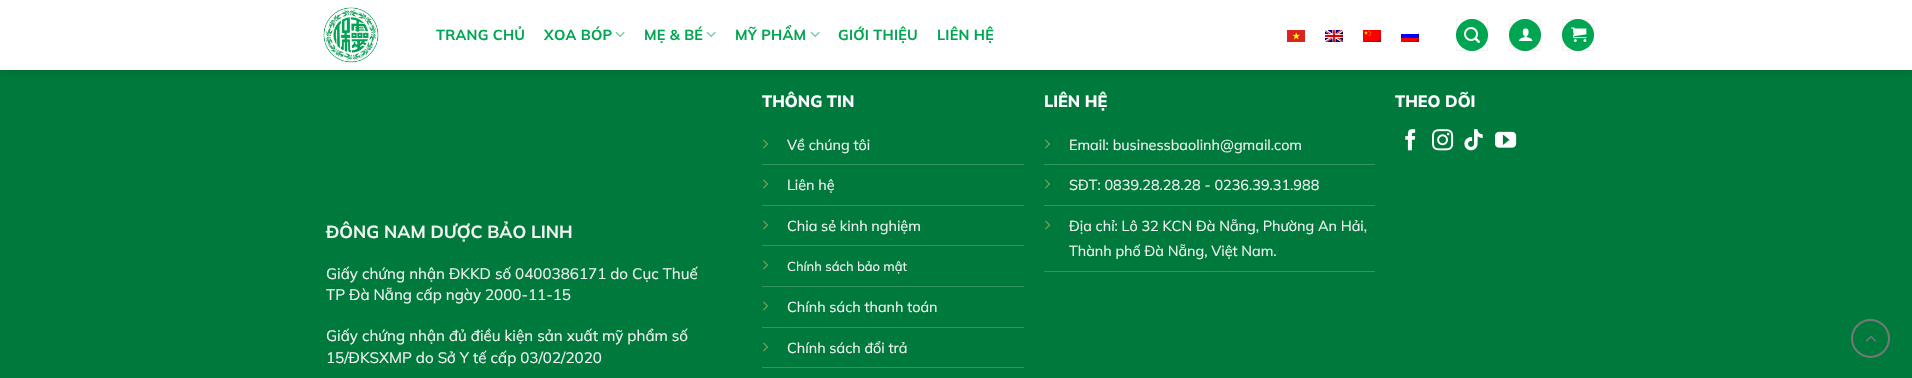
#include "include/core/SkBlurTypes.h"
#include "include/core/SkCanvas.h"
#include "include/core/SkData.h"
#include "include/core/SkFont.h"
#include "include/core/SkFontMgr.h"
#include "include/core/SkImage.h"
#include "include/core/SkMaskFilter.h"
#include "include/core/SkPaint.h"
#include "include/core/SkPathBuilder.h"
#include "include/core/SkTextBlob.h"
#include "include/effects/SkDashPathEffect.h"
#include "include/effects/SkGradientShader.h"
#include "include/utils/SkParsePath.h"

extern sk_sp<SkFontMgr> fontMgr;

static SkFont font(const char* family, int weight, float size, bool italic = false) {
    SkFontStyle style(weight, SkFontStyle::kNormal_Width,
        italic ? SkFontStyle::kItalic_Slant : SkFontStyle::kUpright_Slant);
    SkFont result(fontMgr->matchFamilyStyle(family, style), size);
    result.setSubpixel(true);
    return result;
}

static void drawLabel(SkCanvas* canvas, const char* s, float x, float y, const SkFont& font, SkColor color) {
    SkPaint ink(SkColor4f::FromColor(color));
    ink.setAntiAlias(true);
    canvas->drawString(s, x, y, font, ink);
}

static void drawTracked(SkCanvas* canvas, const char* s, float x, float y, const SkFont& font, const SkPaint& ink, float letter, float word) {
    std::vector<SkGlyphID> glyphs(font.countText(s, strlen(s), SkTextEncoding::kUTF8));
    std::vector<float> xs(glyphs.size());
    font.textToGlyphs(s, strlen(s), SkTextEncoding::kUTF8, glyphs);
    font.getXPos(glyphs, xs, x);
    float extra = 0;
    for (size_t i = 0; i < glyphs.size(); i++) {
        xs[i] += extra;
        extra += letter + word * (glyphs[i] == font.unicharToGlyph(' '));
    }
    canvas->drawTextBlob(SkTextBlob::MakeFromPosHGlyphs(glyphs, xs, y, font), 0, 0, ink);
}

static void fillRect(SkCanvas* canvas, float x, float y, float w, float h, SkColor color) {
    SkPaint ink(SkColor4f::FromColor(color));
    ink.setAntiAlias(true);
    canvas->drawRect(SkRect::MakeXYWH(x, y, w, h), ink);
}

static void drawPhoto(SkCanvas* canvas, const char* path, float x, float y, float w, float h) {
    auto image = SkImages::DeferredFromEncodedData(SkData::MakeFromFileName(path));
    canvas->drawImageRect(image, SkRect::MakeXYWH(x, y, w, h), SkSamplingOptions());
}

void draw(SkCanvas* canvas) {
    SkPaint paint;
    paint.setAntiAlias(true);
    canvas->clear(0xFF007A3C);
    paint.setColor(0x26000000);
    paint.setMaskFilter(SkMaskFilter::MakeBlur(kNormal_SkBlurStyle, 5));
    canvas->drawRect(SkRect::MakeXYWH(1, 1, 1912, 70), paint);
    paint.setMaskFilter(nullptr);
    fillRect(canvas, 0, 0, 1912, 70, 0xFFFFFFFF);
    drawPhoto(canvas, "assets/img1.png", 323, 7, 56, 56);
    SkFont font1 = font("Mulish", 700, 14.4f);
    paint.setColor(0xFF00A551);
    drawTracked(canvas, "TRANG CHỦ", 436, 40, font1, paint, 0.25f, 0);
    drawTracked(canvas, "XOA BÓP", 544, 40, font1, paint, 0.25f, 0);
    drawPhoto(canvas, "assets/img2.png", 615, 31, 10, 6);
    drawTracked(canvas, "MẸ & BÉ", 644, 40, font1, paint, 0.25f, 0);
    drawPhoto(canvas, "assets/img2.png", 706, 31, 10, 6);
    drawTracked(canvas, "MỸ PHẨM", 735, 40, font1, paint, 0.25f, 0);
    drawPhoto(canvas, "assets/img2.png", 810, 31, 10, 6);
    drawTracked(canvas, "GIỚI THIỆU", 838, 40, font1, paint, 0.25f, 0);
    drawTracked(canvas, "LIÊN HỆ", 937, 40, font1, paint, 0.25f, 0);
    drawPhoto(canvas, "assets/img3.png", 1287, 30, 18, 12);
    drawPhoto(canvas, "assets/img4.png", 1325, 30, 18, 12);
    drawPhoto(canvas, "assets/img5.png", 1363, 30, 18, 12);
    drawPhoto(canvas, "assets/img6.png", 1401, 32, 18, 10);
    canvas->drawCircle(1472, 35, 16, paint);
    paint.setStroke(true);
    paint.setStrokeWidth(1);
    paint.setColor(0x0D000000);
    canvas->drawRect(SkRect::MakeXYWH(1456.5f, 19.5f, 31, 31), paint);
    drawPhoto(canvas, "assets/img7.png", 1464, 27, 16, 16);
    paint.setStroke(false);
    paint.setColor(0xFF00A551);
    canvas->drawCircle(1525, 35, 16, paint);
    paint.setStroke(true);
    paint.setColor(0x0D000000);
    canvas->drawRect(SkRect::MakeXYWH(1509.5f, 19.5f, 31, 31), paint);
    drawPhoto(canvas, "assets/img8.png", 1519, 28, 14, 13);
    paint.setStroke(false);
    paint.setColor(0xFF00A551);
    canvas->drawCircle(1578, 35, 16, paint);
    paint.setStroke(true);
    paint.setColor(0x0D000000);
    canvas->drawRect(SkRect::MakeXYWH(1562.5f, 19.5f, 31, 31), paint);
    drawPhoto(canvas, "assets/img9.png", 1571, 27, 16, 15);
    SkFont font2 = font("Mulish", 700, 17.5f);
    drawLabel(canvas, "ĐÔNG NAM DƯỢC BẢO LINH", 326, 238, font2, 0xFFF1F1F1);
    SkFont font3 = font("Mulish", 400, 15.2f);
    drawLabel(canvas, "Giấy chứng nhận ĐKKD số 0400386171 do Cục Thuế", 326, 279, font3, 0xFFF1F1F1);
    drawLabel(canvas, "TP Đà Nẵng cấp ngày 2000-11-15", 326, 300, font3, 0xFFF1F1F1);
    drawLabel(canvas, "Giấy chứng nhận đủ điều kiện sản xuất mỹ phẩm số", 326, 341, font3, 0xFFF1F1F1);
    drawLabel(canvas, "15/ĐKSXMP do Sở Y tế cấp 03/02/2020", 326, 363, font3, 0xFFF1F1F1);
    SkFont font4 = font("Mulish", 800, 16.25f);
    drawLabel(canvas, "THÔNG TIN", 762, 107, font4, 0xFFFFFFFF);
    fillRect(canvas, 762, 164, 262, 1, 0xFF339563);
    drawPhoto(canvas, "assets/img10.png", 763, 139, 6, 10);
    SkFont font5 = font("Mulish", 400, 14.4f);
    drawLabel(canvas, "Về chúng tôi", 787, 150, font5, 0xFFF1F1F1);
    fillRect(canvas, 762, 205, 262, 1, 0xFF339563);
    drawPhoto(canvas, "assets/img10.png", 763, 179, 6, 10);
    drawLabel(canvas, "Liên hệ", 787, 190, font5, 0xFFF1F1F1);
    fillRect(canvas, 762, 245, 262, 1, 0xFF339563);
    drawPhoto(canvas, "assets/img10.png", 763, 220, 6, 10);
    drawLabel(canvas, "Chia sẻ kinh nghiệm", 787, 231, font5, 0xFFF1F1F1);
    fillRect(canvas, 762, 286, 262, 1, 0xFF339563);
    drawPhoto(canvas, "assets/img10.png", 763, 260, 6, 10);
    SkFont font6 = font("Mulish", 400, 13);
    drawLabel(canvas, "Chính sách bảo mật", 787, 271, font6, 0xFFF1F1F1);
    fillRect(canvas, 762, 327, 262, 1, 0xFF339563);
    drawPhoto(canvas, "assets/img10.png", 763, 301, 6, 10);
    drawLabel(canvas, "Chính sách thanh toán", 787, 312, font5, 0xFFF1F1F1);
    fillRect(canvas, 762, 367, 262, 1, 0xFF339563);
    drawPhoto(canvas, "assets/img10.png", 763, 342, 6, 10);
    drawLabel(canvas, "Chính sách đổi trả", 787, 353, font5, 0xFFF1F1F1);
    drawLabel(canvas, "LIÊN HỆ", 1044, 107, font4, 0xFFFFFFFF);
    fillRect(canvas, 1044, 164, 331, 1, 0xFF339563);
    drawPhoto(canvas, "assets/img10.png", 1045, 139, 6, 10);
    drawLabel(canvas, "Email: businessbaolinh@gmail.com", 1069, 150, font5, 0xFFF1F1F1);
    fillRect(canvas, 1044, 205, 331, 1, 0xFF339563);
    drawPhoto(canvas, "assets/img10.png", 1045, 179, 6, 10);
    drawLabel(canvas, "SĐT: 0839.28.28.28 - 0236.39.31.988", 1069, 190, font5, 0xFFF1F1F1);
    fillRect(canvas, 1044, 271, 331, 1, 0xFF339563);
    drawPhoto(canvas, "assets/img10.png", 1045, 220, 6, 10);
    drawLabel(canvas, "Địa chỉ: Lô 32 KCN Đà Nẵng, Phường An Hải,", 1069, 231, font5, 0xFFF1F1F1);
    drawLabel(canvas, "Thành phố Đà Nẵng, Việt Nam.", 1069, 256, font5, 0xFFF1F1F1);
    drawLabel(canvas, "THEO DÕI", 1395, 107, font4, 0xFFFFFFFF);
    drawPhoto(canvas, "assets/img11.png", 1405, 129, 11, 22);
    drawPhoto(canvas, "assets/img12.png", 1432, 129, 22, 22);
    drawPhoto(canvas, "assets/img13.png", 1464, 129, 19, 22);
    drawPhoto(canvas, "assets/img14.png", 1495, 131, 22, 17);
    paint.setStrokeWidth(2);
    paint.setColor(0xFF777777);
    canvas->drawCircle(1870.5f, 338.5f, 18.5f, paint);
    drawPhoto(canvas, "assets/img15.png", 1865, 335, 12, 7);
}
